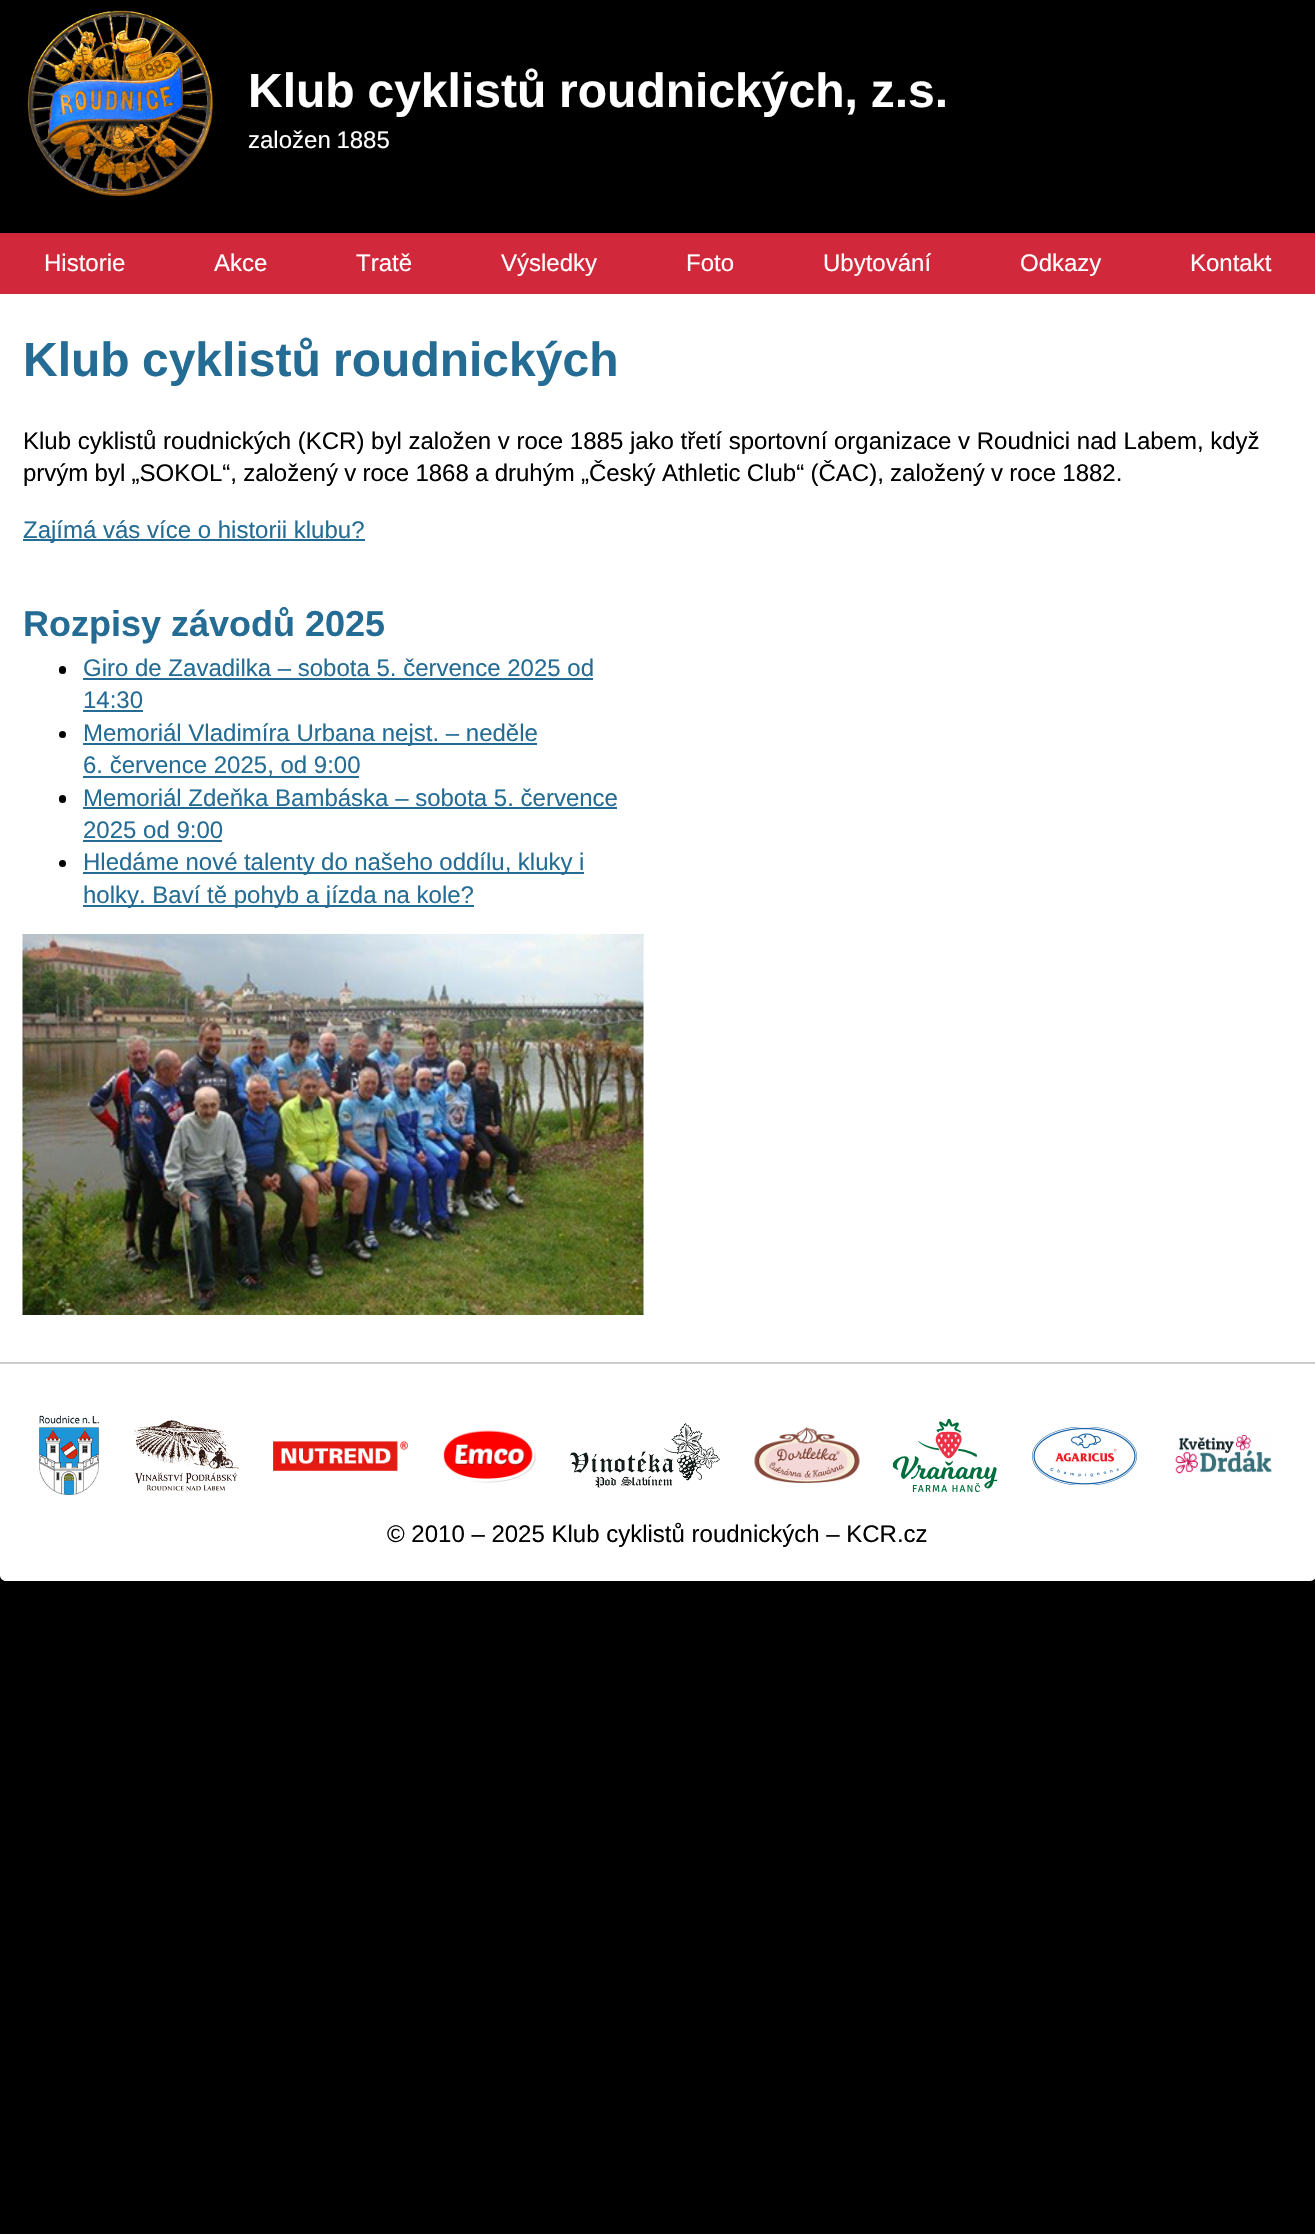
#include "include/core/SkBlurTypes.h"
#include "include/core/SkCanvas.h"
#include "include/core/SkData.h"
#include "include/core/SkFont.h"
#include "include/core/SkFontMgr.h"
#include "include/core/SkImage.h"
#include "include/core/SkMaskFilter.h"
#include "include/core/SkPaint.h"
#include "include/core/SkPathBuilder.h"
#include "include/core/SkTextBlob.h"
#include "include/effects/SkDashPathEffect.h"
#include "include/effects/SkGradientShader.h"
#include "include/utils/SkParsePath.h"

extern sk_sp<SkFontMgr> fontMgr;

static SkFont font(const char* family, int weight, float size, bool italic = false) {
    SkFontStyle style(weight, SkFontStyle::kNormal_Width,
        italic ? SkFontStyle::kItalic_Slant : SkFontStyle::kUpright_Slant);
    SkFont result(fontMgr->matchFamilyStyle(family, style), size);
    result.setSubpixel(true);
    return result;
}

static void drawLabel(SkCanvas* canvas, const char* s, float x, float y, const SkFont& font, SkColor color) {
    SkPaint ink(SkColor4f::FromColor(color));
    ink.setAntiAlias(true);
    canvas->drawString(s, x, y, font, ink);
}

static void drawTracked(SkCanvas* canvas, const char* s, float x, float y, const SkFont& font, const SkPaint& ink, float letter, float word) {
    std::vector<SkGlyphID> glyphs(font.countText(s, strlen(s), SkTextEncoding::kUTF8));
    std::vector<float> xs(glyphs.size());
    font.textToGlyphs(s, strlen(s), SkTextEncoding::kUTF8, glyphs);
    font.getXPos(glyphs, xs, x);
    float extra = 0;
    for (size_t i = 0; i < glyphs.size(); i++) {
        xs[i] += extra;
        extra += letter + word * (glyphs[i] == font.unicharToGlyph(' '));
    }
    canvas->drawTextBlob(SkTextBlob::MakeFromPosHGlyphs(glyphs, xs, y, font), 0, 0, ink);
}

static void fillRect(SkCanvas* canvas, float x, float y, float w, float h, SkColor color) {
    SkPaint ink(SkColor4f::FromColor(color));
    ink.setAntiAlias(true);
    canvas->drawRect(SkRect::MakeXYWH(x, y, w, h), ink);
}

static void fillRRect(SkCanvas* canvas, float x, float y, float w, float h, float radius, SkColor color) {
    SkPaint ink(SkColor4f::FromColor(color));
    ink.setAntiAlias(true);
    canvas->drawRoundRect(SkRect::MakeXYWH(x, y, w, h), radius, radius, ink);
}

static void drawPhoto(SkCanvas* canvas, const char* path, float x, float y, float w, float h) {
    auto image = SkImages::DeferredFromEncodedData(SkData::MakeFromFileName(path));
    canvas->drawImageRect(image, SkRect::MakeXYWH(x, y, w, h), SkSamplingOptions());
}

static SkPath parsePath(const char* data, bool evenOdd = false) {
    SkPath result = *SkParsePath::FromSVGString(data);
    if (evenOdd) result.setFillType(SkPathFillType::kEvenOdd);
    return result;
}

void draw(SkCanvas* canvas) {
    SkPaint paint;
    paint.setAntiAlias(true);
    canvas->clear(0xFF000000);
    drawPhoto(canvas, "assets/img1.png", 27, 10, 186, 187);
    SkFont font1 = font("Liberation Sans", 700, 48);
    paint.setColor(0xFFFFFFFF);
    drawTracked(canvas, "Klub cyklistů roudnických, z.s.", 248, 107, font1, paint, 0, -0.5f);
    SkFont font2 = font("Liberation Sans", 400, 24);
    drawTracked(canvas, "založen 1885", 248, 148, font2, paint, 0, -1);
    fillRect(canvas, 0, 233, 1315, 61, 0xFFD1293B);
    drawLabel(canvas, "Historie", 44, 271, font2, 0xFFFFFFFF);
    drawLabel(canvas, "Akce", 214, 271, font2, 0xFFFFFFFF);
    drawLabel(canvas, "Tratě", 356, 271, font2, 0xFFFFFFFF);
    drawLabel(canvas, "Výsledky", 501, 271, font2, 0xFFFFFFFF);
    drawLabel(canvas, "Foto", 686, 271, font2, 0xFFFFFFFF);
    drawLabel(canvas, "Ubytování", 823, 271, font2, 0xFFFFFFFF);
    drawLabel(canvas, "Odkazy", 1020, 271, font2, 0xFFFFFFFF);
    drawLabel(canvas, "Kontakt", 1190, 271, font2, 0xFFFFFFFF);
    fillRect(canvas, 0, 294, 1315, 1068, 0xFFFFFFFF);
    paint.setColor(0xFF256C95);
    drawTracked(canvas, "Klub cyklistů roudnických", 23, 376, font1, paint, 0, -1);
    drawLabel(canvas, "Klub cyklistů roudnických (KCR) byl založen v roce 1885 jako třetí sportovní organizace v Roudnici nad Labem, když", 23, 449, font2, 0xFF000000);
    paint.setColor(0xFF000000);
    drawTracked(canvas, "prvým byl „SOKOL“, založený v roce 1868 a druhým „Český Athletic Club“ (ČAC), založený v roce 1882.", 23, 481, font2, paint, 0, -0.4f);
    fillRect(canvas, 23, 539, 342, 2, 0xFF256C95);
    drawLabel(canvas, "Zajímá vás více o historii klubu?", 23, 538, font2, 0xFF256C95);
    SkFont font3 = font("Liberation Sans", 700, 36);
    drawLabel(canvas, "Rozpisy závodů 2025", 23, 636, font3, 0xFF256C95);
    fillRRect(canvas, 59, 666, 7, 8, 3.5f, 0xFF000000);
    drawLabel(canvas, "Giro de Zavadilka – sobota 5. července 2025 od", 83, 676, font2, 0xFF256C95);
    fillRect(canvas, 83, 678, 510, 2, 0xFF256C95);
    drawLabel(canvas, "14:30", 83, 708, font2, 0xFF256C95);
    fillRect(canvas, 83, 710, 60, 2, 0xFF256C95);
    canvas->drawCircle(62.5f, 734.5f, 3.5f, paint);
    fillRect(canvas, 83, 743, 454, 2, 0xFF256C95);
    drawLabel(canvas, "Memoriál Vladimíra Urbana nejst. – neděle", 83, 741, font2, 0xFF256C95);
    fillRect(canvas, 83, 776, 276, 2, 0xFF256C95);
    drawLabel(canvas, "6. července 2025, od 9:00", 83, 773, font2, 0xFF256C95);
    fillRRect(canvas, 59, 795, 7, 8, 3.5f, 0xFF000000);
    drawLabel(canvas, "Memoriál Zdeňka Bambáska – sobota 5. července", 83, 806, font2, 0xFF256C95);
    fillRect(canvas, 83, 807, 534, 2, 0xFF256C95);
    drawLabel(canvas, "2025 od 9:00", 83, 838, font2, 0xFF256C95);
    fillRect(canvas, 83, 840, 139, 2, 0xFF256C95);
    canvas->drawCircle(62.5f, 863.5f, 3.5f, paint);
    fillRect(canvas, 83, 872, 501, 2, 0xFF256C95);
    paint.setColor(0xFF256C95);
    drawTracked(canvas, "Hledáme nové talenty do našeho oddílu, kluky i", 83, 870, font2, paint, 0, -0.25f);
    fillRect(canvas, 83, 905, 391, 2, 0xFF256C95);
    drawLabel(canvas, "holky. Baví tě pohyb a jízda na kole?", 83, 903, font2, 0xFF256C95);
    drawPhoto(canvas, "assets/img2.png", 22, 934, 622, 381);
    paint.setColor(0xFFFFFFFF);
    canvas->drawPath(parsePath("M0 1362H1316V1575C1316 1578.5 1313.5 1581 1310 1581H6C2.5 1581 0 1578.5 0 1575Z"), paint);
    fillRect(canvas, 0, 1362, 1315, 2, 0xFFCCCCCC);
    drawPhoto(canvas, "assets/img3.png", 39, 1415, 60, 80);
    drawPhoto(canvas, "assets/img4.png", 133, 1420, 106, 71);
    drawPhoto(canvas, "assets/img5.png", 273, 1441, 135, 30);
    drawPhoto(canvas, "assets/img6.png", 443, 1430, 93, 53);
    drawPhoto(canvas, "assets/img7.png", 570, 1423, 150, 65);
    drawPhoto(canvas, "assets/img8.png", 754, 1427, 106, 56);
    drawPhoto(canvas, "assets/img9.png", 893, 1419, 105, 73);
    drawPhoto(canvas, "assets/img10.png", 1032, 1427, 105, 58);
    drawPhoto(canvas, "assets/img11.png", 1175, 1434, 97, 40);
    drawLabel(canvas, "© 2010 – 2025 Klub cyklistů roudnických – KCR.cz", 387, 1542, font2, 0xFF000000);
}
